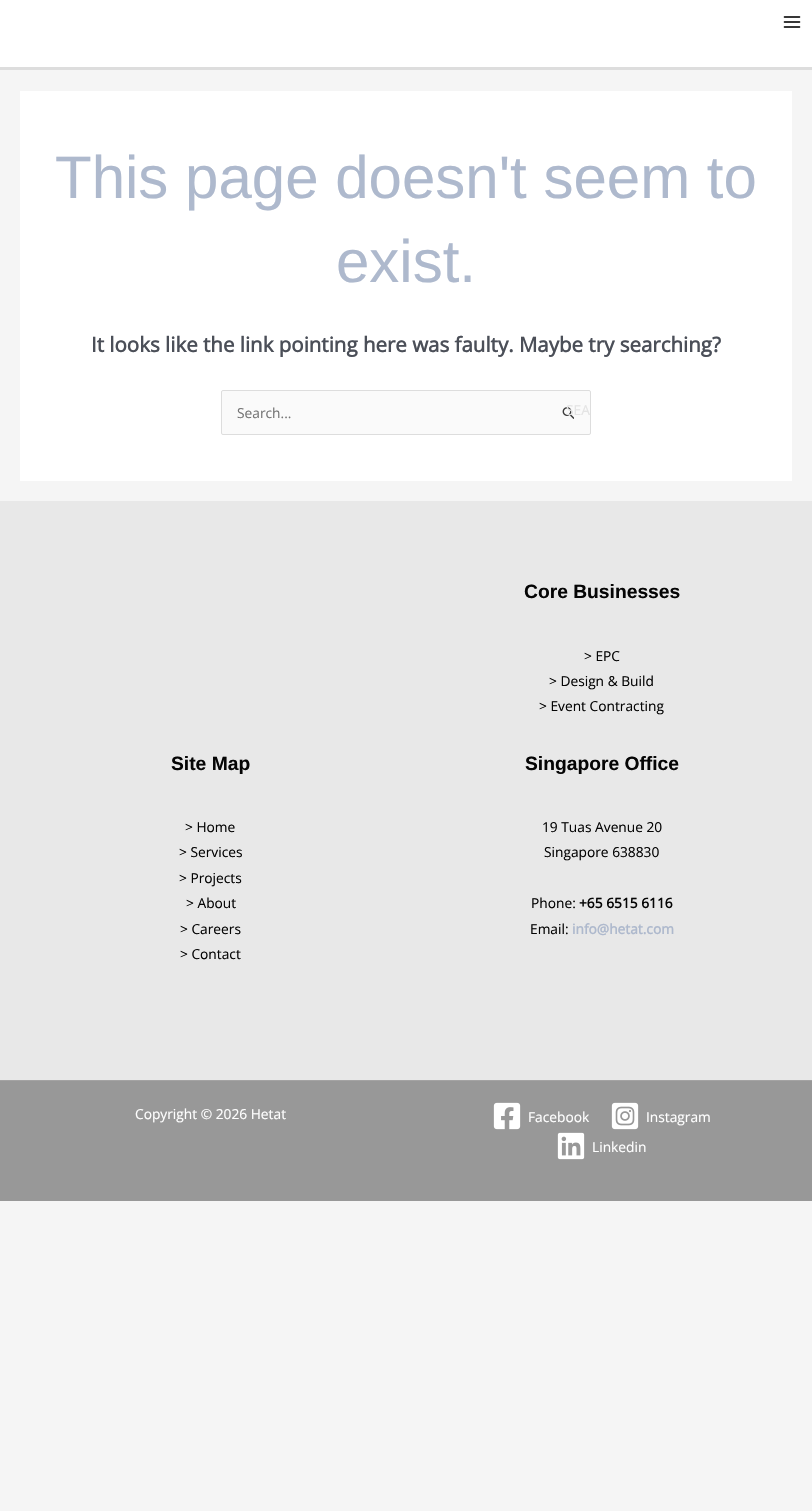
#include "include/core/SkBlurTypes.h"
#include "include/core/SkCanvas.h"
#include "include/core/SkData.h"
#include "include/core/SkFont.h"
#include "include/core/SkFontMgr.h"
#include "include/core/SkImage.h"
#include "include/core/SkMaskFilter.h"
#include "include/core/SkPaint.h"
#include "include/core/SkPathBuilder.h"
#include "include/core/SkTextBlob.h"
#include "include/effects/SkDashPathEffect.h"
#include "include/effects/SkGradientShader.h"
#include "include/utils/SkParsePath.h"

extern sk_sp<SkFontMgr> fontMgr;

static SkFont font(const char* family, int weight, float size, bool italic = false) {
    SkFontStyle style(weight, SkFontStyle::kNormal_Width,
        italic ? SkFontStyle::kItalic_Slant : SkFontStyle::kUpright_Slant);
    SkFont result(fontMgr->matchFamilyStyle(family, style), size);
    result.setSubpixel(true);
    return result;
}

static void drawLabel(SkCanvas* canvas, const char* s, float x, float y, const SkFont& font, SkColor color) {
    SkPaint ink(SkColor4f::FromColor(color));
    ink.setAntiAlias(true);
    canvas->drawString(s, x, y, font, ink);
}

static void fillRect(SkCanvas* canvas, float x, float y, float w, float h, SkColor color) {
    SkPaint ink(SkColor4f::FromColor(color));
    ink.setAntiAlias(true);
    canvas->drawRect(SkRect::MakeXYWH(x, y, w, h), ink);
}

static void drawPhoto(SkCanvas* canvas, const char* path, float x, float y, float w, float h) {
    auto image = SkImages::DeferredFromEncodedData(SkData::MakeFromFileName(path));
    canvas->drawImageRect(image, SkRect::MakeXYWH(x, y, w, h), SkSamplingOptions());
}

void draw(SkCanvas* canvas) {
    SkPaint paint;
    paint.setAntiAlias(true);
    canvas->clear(0xFFF5F5F5);
    fillRect(canvas, 0, 0, 812, 67, 0xFFFFFFFF);
    fillRect(canvas, 0, 67, 812, 3, 0xFFDDDDDD);
    drawPhoto(canvas, "assets/img1.png", 783, 16, 18, 12);
    fillRect(canvas, 20, 91, 772, 390, 0xFFFFFFFF);
    SkFont font1 = font("Liberation Sans", 400, 60);
    drawLabel(canvas, "This page doesn't seem to", 55, 198, font1, 0xFFAEB9CD);
    drawLabel(canvas, "exist.", 336, 282, font1, 0xFFAEB9CD);
    SkFont font2 = font("Open Sans", 700, 20.5f);
    drawLabel(canvas, "It looks like the link pointing here was faulty. Maybe try searching?", 91, 352, font2, 0xFF4B4F58);
    paint.setColor(0xFFFAFAFA);
    canvas->drawRoundRect(SkRect::MakeXYWH(221.5f, 390.5f, 369, 44), 1.5f, 1.5f, paint);
    paint.setStroke(true);
    paint.setStrokeWidth(1);
    paint.setColor(0xFFDDDDDD);
    canvas->drawRoundRect(SkRect::MakeXYWH(221.5f, 390.5f, 369, 44), 1.5f, 1.5f, paint);
    SkFont font3 = font("Open Sans", 400, 13.75f);
    drawLabel(canvas, "Search...", 237, 418, font3, 0xFF757575);
    drawPhoto(canvas, "assets/img2.png", 562, 407, 12, 12);
    drawLabel(canvas, "SEA", 566, 415, font3, 0xFFE4E4E4);
    fillRect(canvas, 0, 501, 812, 579, 0xFFE8E8E8);
    SkFont font4 = font("Liberation Sans", 700, 19.25f);
    drawLabel(canvas, "Core Businesses", 524, 598, font4, 0xFF050505);
    drawLabel(canvas, "> EPC", 584, 661, font3, 0xFF050505);
    drawLabel(canvas, "> Design & Build", 549, 686, font3, 0xFF050505);
    drawLabel(canvas, "> Event Contracting", 539, 711, font3, 0xFF050505);
    drawLabel(canvas, "Site Map", 171, 770, font4, 0xFF050505);
    drawLabel(canvas, "> Home", 185, 832, font3, 0xFF050505);
    drawLabel(canvas, "> Services", 179, 857, font3, 0xFF050505);
    drawLabel(canvas, "> Projects", 179, 883, font3, 0xFF050505);
    drawLabel(canvas, "> About", 186, 908, font3, 0xFF050505);
    drawLabel(canvas, "> Careers", 180, 934, font3, 0xFF050505);
    drawLabel(canvas, "> Contact", 180, 959, font3, 0xFF050505);
    drawLabel(canvas, "Singapore Office", 525, 770, font4, 0xFF050505);
    drawLabel(canvas, "19 Tuas Avenue 20", 542, 832, font3, 0xFF050505);
    drawLabel(canvas, "Singapore 638830", 544, 857, font3, 0xFF050505);
    drawLabel(canvas, "Phone:", 531, 908, font3, 0xFF050505);
    SkFont font5 = font("Open Sans", 700, 13.75f);
    drawLabel(canvas, "+65 6515 6116", 579, 908, font5, 0xFF050505);
    drawLabel(canvas, "Email:", 530, 934, font3, 0xFF050505);
    drawLabel(canvas, "info@hetat.com", 572, 934, font5, 0xFFAEB9CD);
    fillRect(canvas, 0, 1081, 812, 120, 0xFF989898);
    fillRect(canvas, 0, 1080, 812, 1, 0xFFA4A3A3);
    drawLabel(canvas, "Copyright © 2026 Hetat", 135, 1119, font3, 0xFFFFFFFF);
    drawPhoto(canvas, "assets/img3.png", 493, 1102, 28, 28);
    drawLabel(canvas, "Facebook", 528, 1122, font3, 0xFFFFFFFF);
    drawPhoto(canvas, "assets/img4.png", 611, 1102, 28, 28);
    drawLabel(canvas, "Instagram", 646, 1122, font3, 0xFFFFFFFF);
    drawPhoto(canvas, "assets/img5.png", 557, 1132, 28, 28);
    drawLabel(canvas, "Linkedin", 592, 1152, font3, 0xFFFFFFFF);
}
